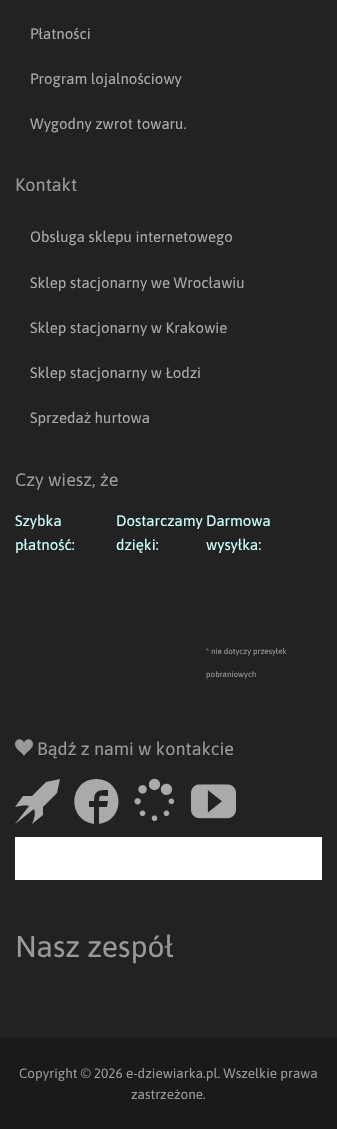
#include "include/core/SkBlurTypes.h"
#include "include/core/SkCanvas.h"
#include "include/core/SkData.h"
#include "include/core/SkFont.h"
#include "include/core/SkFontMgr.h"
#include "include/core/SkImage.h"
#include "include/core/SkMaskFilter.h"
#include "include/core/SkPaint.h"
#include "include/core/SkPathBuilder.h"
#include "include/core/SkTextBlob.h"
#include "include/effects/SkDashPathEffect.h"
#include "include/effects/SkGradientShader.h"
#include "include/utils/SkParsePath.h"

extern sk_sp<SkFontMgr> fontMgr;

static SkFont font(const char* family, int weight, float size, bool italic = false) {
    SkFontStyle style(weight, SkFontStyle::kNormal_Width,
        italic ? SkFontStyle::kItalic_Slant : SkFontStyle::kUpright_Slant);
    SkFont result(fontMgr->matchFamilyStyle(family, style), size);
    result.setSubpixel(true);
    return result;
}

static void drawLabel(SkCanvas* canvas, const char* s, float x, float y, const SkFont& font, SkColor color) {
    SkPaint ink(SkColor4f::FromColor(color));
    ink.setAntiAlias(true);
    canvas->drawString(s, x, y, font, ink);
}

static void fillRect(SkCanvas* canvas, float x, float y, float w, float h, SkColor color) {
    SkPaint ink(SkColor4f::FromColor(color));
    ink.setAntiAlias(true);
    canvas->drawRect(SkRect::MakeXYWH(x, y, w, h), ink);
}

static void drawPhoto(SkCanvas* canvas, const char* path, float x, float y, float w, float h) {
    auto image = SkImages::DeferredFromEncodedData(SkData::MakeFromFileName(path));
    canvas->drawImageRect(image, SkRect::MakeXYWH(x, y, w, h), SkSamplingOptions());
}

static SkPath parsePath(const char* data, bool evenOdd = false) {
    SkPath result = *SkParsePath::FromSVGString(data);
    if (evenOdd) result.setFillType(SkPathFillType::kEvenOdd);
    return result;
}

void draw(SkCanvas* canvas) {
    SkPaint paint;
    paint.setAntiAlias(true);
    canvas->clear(0xFF222222);
    SkFont font1 = font("Asap", 400, 15);
    drawLabel(canvas, "Płatności", 30, 39, font1, 0xFFAAAAAA);
    drawLabel(canvas, "Program lojalnościowy", 30, 84, font1, 0xFFAAAAAA);
    drawLabel(canvas, "Wygodny zwrot towaru.", 30, 129, font1, 0xFFAAAAAA);
    SkFont font2 = font("Asap", 400, 18);
    drawLabel(canvas, "Kontakt", 15, 191, font2, 0xFF999999);
    drawLabel(canvas, "Obsługa sklepu internetowego", 30, 242, font1, 0xFFAAAAAA);
    drawLabel(canvas, "Sklep stacjonarny we Wrocławiu", 30, 288, font1, 0xFFAAAAAA);
    drawLabel(canvas, "Sklep stacjonarny w Krakowie", 30, 333, font1, 0xFFAAAAAA);
    drawLabel(canvas, "Sklep stacjonarny w Łodzi", 30, 378, font1, 0xFFAAAAAA);
    drawLabel(canvas, "Sprzedaż hurtowa", 30, 423, font1, 0xFFAAAAAA);
    drawLabel(canvas, "Czy wiesz, że", 15, 486, font2, 0xFF999999);
    drawLabel(canvas, "Szybka", 15, 526, font1, 0xFFCCFFFF);
    drawLabel(canvas, "płatność:", 15, 550, font1, 0xFFCCFFFF);
    drawLabel(canvas, "Dostarczamy", 116, 526, font1, 0xFFCCFFFF);
    drawLabel(canvas, "dzięki:", 116, 550, font1, 0xFFCCFFFF);
    drawLabel(canvas, "Darmowa", 206, 526, font1, 0xFFCCFFFF);
    drawLabel(canvas, "wysyłka:", 206, 550, font1, 0xFFCCFFFF);
    SkFont font3 = font("Asap", 400, 8);
    drawLabel(canvas, "* nie dotyczy przesyłek", 206, 654, font3, 0xFF999999);
    drawLabel(canvas, "pobraniowych", 206, 677, font3, 0xFF999999);
    drawPhoto(canvas, "assets/img1.png", 15, 739, 18, 17);
    drawLabel(canvas, "Bądź z nami w kontakcie", 37, 755, font2, 0xFF999999);
    paint.setColor(0xFFAAAAAA);
    canvas->drawPath(parsePath("M46 782L32 796H23L15 807C19 806 25 805 29 806L15 824L34 809C36 814 34 819 32 824L43 815V807L57 793L60 779Z"), paint);
    canvas->drawPath(parsePath("M96 779C124 779 127 820 99 824V807H107L108 801H99C99 794 101 796 108 796V790C98 790 94 791 94 801H89V807H94V824C66 820 69 779 96 779Z"), paint);
    drawPhoto(canvas, "assets/img2.png", 134, 778, 41, 43);
    drawPhoto(canvas, "assets/img3.png", 191, 784, 45, 35);
    fillRect(canvas, 15, 837, 307, 43, 0xFFFFFFFF);
    SkFont font4 = font("Asap", 400, 30);
    drawLabel(canvas, "Nasz zespół", 15, 957, font4, 0xFF999999);
    fillRect(canvas, 0, 1038, 337, 91, 0xFF1A1A1A);
    SkFont font5 = font("Asap", 400, 13.5f);
    drawLabel(canvas, "Copyright © 2026 e-dziewiarka.pl. Wszelkie prawa", 19, 1078, font5, 0xFF999999);
    drawLabel(canvas, "zastrzeżone.", 131, 1099, font5, 0xFF999999);
}
